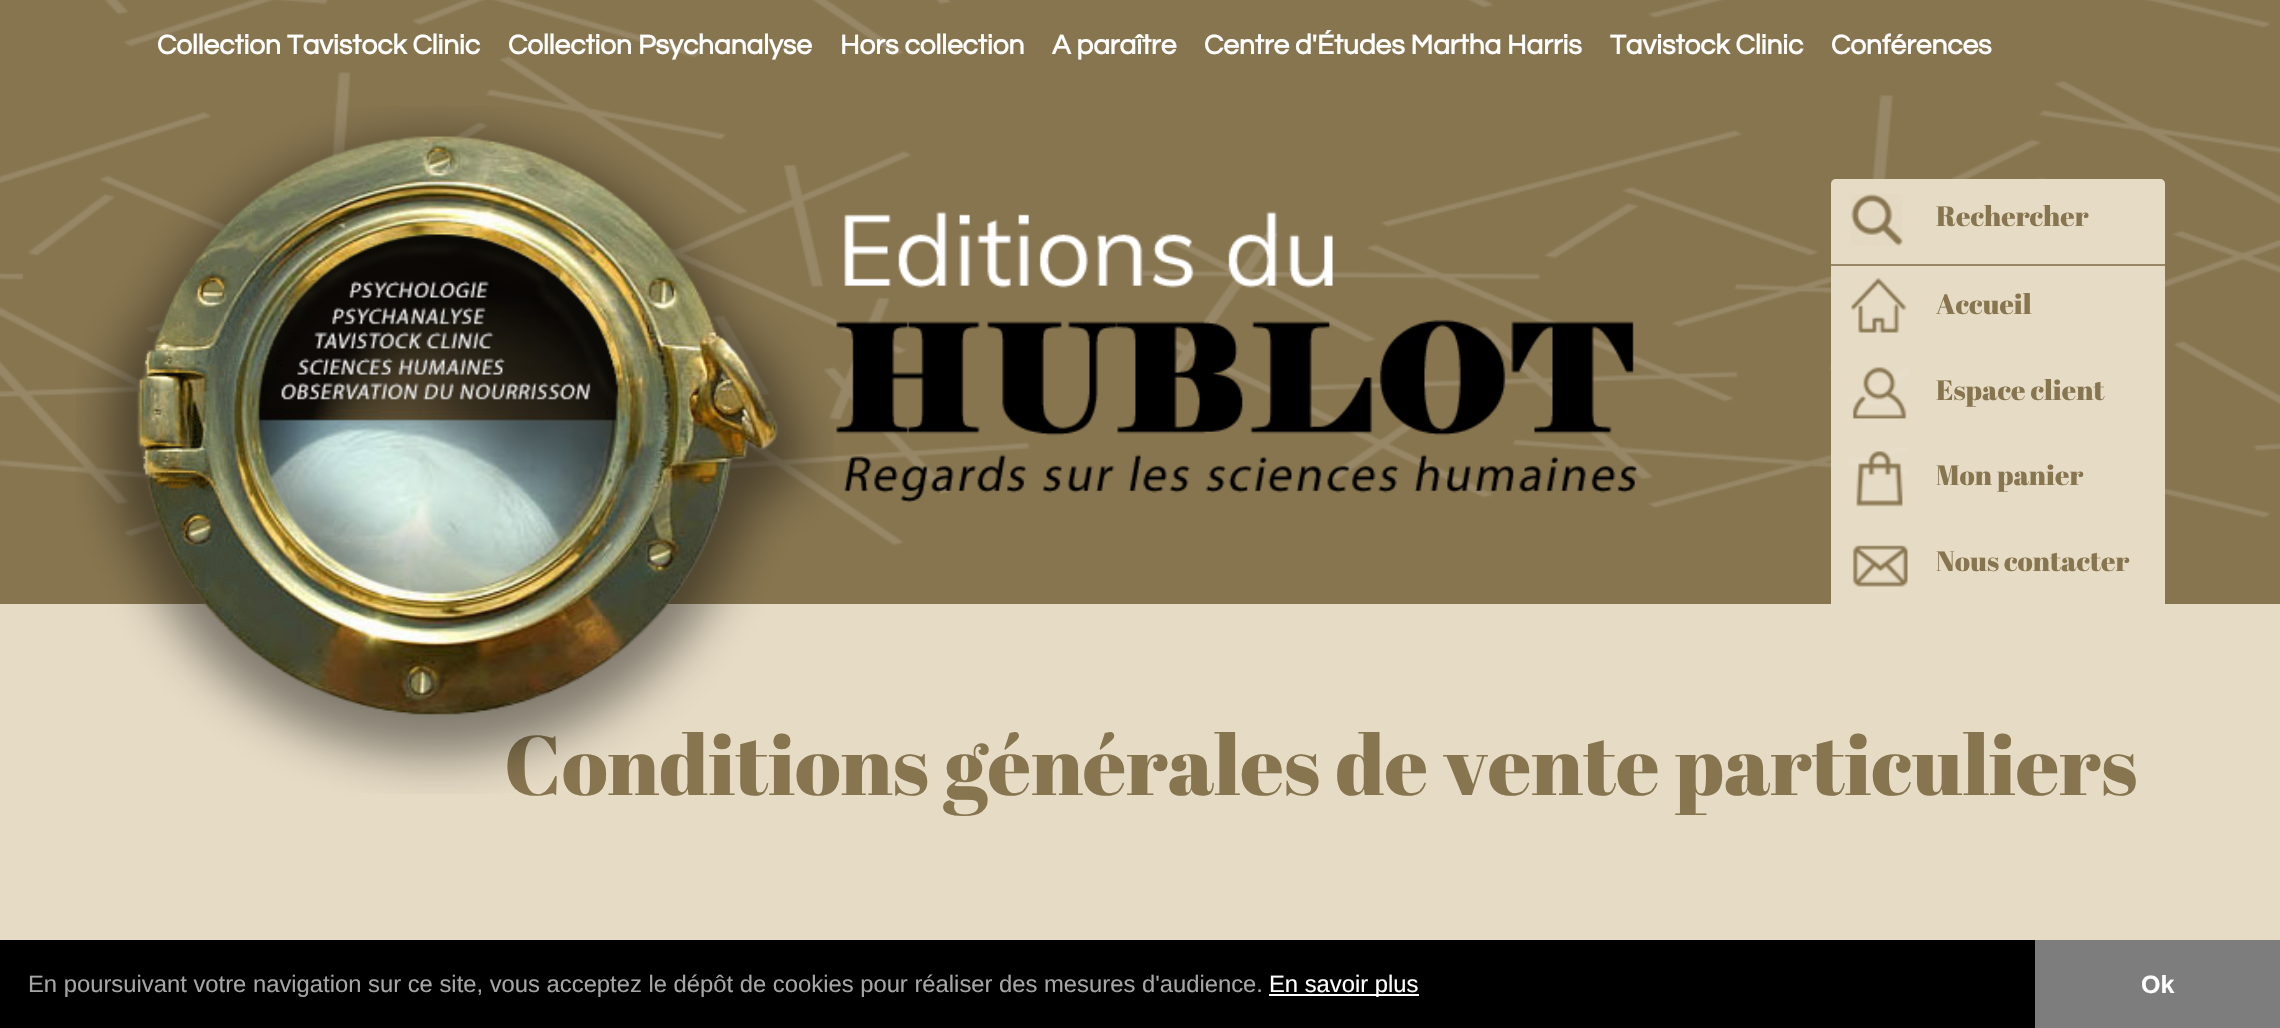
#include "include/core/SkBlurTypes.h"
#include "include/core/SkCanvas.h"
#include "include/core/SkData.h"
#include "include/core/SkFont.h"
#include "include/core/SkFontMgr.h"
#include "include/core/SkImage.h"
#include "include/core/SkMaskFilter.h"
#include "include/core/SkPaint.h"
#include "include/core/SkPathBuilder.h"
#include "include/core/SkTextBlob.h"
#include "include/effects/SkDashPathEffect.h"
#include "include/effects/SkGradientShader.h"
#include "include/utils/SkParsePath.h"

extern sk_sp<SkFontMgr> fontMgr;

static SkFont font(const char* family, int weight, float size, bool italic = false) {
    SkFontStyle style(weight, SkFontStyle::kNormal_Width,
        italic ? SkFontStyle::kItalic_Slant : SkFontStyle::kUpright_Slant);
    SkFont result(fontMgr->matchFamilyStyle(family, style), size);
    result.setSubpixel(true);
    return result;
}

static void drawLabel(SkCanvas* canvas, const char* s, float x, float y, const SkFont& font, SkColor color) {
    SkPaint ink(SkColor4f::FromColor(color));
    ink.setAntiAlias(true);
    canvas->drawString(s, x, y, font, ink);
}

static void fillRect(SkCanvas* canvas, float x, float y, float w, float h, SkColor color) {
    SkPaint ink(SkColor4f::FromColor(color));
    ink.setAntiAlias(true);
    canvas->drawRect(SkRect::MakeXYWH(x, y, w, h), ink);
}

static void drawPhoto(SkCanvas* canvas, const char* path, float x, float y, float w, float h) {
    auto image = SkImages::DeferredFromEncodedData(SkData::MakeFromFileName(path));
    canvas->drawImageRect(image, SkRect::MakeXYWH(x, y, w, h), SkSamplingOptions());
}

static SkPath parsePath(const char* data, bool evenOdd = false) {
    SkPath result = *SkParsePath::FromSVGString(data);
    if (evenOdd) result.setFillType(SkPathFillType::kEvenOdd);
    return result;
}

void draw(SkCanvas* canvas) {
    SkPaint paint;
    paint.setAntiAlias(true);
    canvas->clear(0xFFE6DBC5);
    fillRect(canvas, 0, 0, 2280, 604, 0xFF87754F);
    drawPhoto(canvas, "assets/img1.png", 0, 0, 2280, 604);
    SkFont font1 = font("Questrial", 700, 28);
    drawLabel(canvas, "Collection Tavistock Clinic", 157, 54, font1, 0xFFFFFFFF);
    drawLabel(canvas, "Collection Psychanalyse", 508, 54, font1, 0xFFFFFFFF);
    drawLabel(canvas, "Hors collection", 840, 54, font1, 0xFFFFFFFF);
    drawLabel(canvas, "A paraître", 1052, 54, font1, 0xFFFFFFFF);
    drawLabel(canvas, "Centre d'Études Martha Harris", 1204, 54, font1, 0xFFFFFFFF);
    drawLabel(canvas, "Tavistock Clinic", 1610, 54, font1, 0xFFFFFFFF);
    drawLabel(canvas, "Conférences", 1831, 54, font1, 0xFFFFFFFF);
    SkFont font2 = font("Abril Fatface", 400, 84);
    drawLabel(canvas, "Conditions générales de vente particuliers", 504, 795, font2, 0xFF87754F);
    drawPhoto(canvas, "assets/img2.png", 76, 106, 758, 688);
    drawPhoto(canvas, "assets/img3.png", 836, 211, 801, 292);
    paint.setColor(0xFFE6DBC5);
    canvas->drawPath(parsePath("M1836 179H2160C2163 179 2165 181 2165 184V609H1831V184C1831 181 1833 179 1836 179Z"), paint);
    fillRect(canvas, 1831, 264, 334, 2, 0xFF978766);
    drawPhoto(canvas, "assets/img4.png", 1851, 194, 52, 52);
    SkFont font3 = font("Abril Fatface", 400, 28);
    drawLabel(canvas, "Rechercher", 1936, 226, font3, 0xFF87754F);
    drawPhoto(canvas, "assets/img5.png", 1851, 277, 56, 56);
    drawLabel(canvas, "Accueil", 1936, 314, font3, 0xFF87754F);
    drawPhoto(canvas, "assets/img6.png", 1848, 367, 61, 52);
    drawLabel(canvas, "Espace client", 1936, 400, font3, 0xFF87754F);
    drawPhoto(canvas, "assets/img7.png", 1848, 448, 61, 59);
    drawLabel(canvas, "Mon panier", 1936, 485, font3, 0xFF87754F);
    drawPhoto(canvas, "assets/img8.png", 1852, 545, 56, 42);
    drawLabel(canvas, "Nous contacter", 1936, 571, font3, 0xFF87754F);
    fillRect(canvas, 0, 940, 2035, 88, 0xFF000000);
    SkFont font4 = font("Liberation Sans", 400, 23.8f);
    drawLabel(canvas, "En poursuivant votre navigation sur ce site, vous acceptez le dépôt de cookies pour réaliser des mesures d'audience.", 28, 992, font4, 0xFFA5A5A5);
    fillRect(canvas, 1269, 994, 150, 2, 0xFFFFFFFF);
    drawLabel(canvas, "En savoir plus", 1269, 992, font4, 0xFFFFFFFF);
    fillRect(canvas, 2035, 940, 245, 88, 0xFF7D7D7D);
    SkFont font5 = font("Liberation Sans", 700, 25);
    drawLabel(canvas, "Ok", 2141, 993, font5, 0xFFFFFFFF);
}
